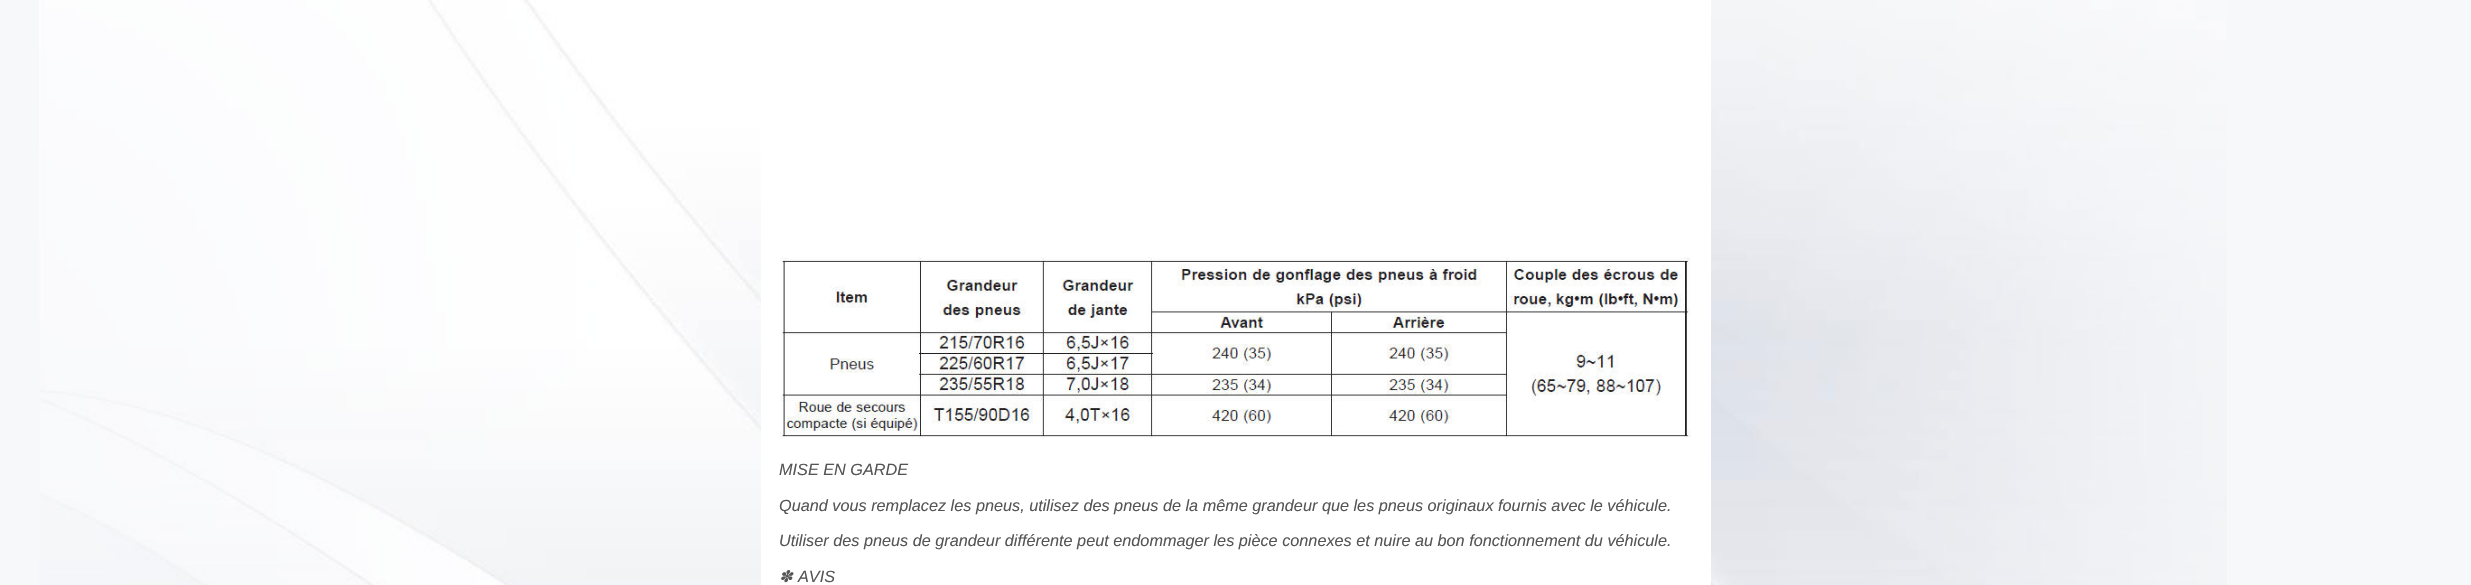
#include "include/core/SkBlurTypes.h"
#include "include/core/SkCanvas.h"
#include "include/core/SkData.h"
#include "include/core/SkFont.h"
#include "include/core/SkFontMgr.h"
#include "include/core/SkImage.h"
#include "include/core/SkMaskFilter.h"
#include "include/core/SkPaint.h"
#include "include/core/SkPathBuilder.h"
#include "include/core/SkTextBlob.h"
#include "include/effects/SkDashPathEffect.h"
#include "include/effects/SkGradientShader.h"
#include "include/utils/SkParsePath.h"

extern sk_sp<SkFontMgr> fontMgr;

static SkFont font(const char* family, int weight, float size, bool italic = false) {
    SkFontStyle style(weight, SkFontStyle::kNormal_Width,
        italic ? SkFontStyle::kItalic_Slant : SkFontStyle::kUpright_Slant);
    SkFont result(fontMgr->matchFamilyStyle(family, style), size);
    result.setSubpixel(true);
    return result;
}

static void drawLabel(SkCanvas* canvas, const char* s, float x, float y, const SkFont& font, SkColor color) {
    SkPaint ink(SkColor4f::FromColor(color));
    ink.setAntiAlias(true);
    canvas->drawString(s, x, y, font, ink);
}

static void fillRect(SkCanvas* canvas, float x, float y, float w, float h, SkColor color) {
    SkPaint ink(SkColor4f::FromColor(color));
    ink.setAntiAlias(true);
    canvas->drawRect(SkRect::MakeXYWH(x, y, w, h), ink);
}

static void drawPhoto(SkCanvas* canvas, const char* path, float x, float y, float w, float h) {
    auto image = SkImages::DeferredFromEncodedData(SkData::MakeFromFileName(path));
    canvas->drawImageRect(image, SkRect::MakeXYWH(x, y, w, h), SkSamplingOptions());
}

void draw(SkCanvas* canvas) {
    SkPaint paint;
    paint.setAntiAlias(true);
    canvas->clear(0xFFF7F8FA);
    drawPhoto(canvas, "assets/img1.png", 39, 0, 2188, 585);
    fillRect(canvas, 761, 0, 950, 585, 0xFFFFFFFF);
    drawPhoto(canvas, "assets/img2.png", 780, 257, 911, 181);
    SkFont font1 = font("Liberation Sans", 400, 16.25f, true);
    drawLabel(canvas, "MISE EN GARDE", 779, 475, font1, 0xFF555555);
    drawLabel(canvas, "Quand vous remplacez les pneus, utilisez des pneus de la même grandeur que les pneus originaux fournis avec le véhicule.", 779, 511, font1, 0xFF555555);
    drawLabel(canvas, "Utiliser des pneus de grandeur différente peut endommager les pièce connexes et nuire au bon fonctionnement du véhicule.", 779, 546, font1, 0xFF555555);
    SkFont font2 = font("DejaVu Sans", 400, 16.25f, true);
    drawLabel(canvas, "✽", 779, 582, font2, 0xFF555555);
    drawLabel(canvas, "AVIS", 798, 582, font1, 0xFF555555);
}
